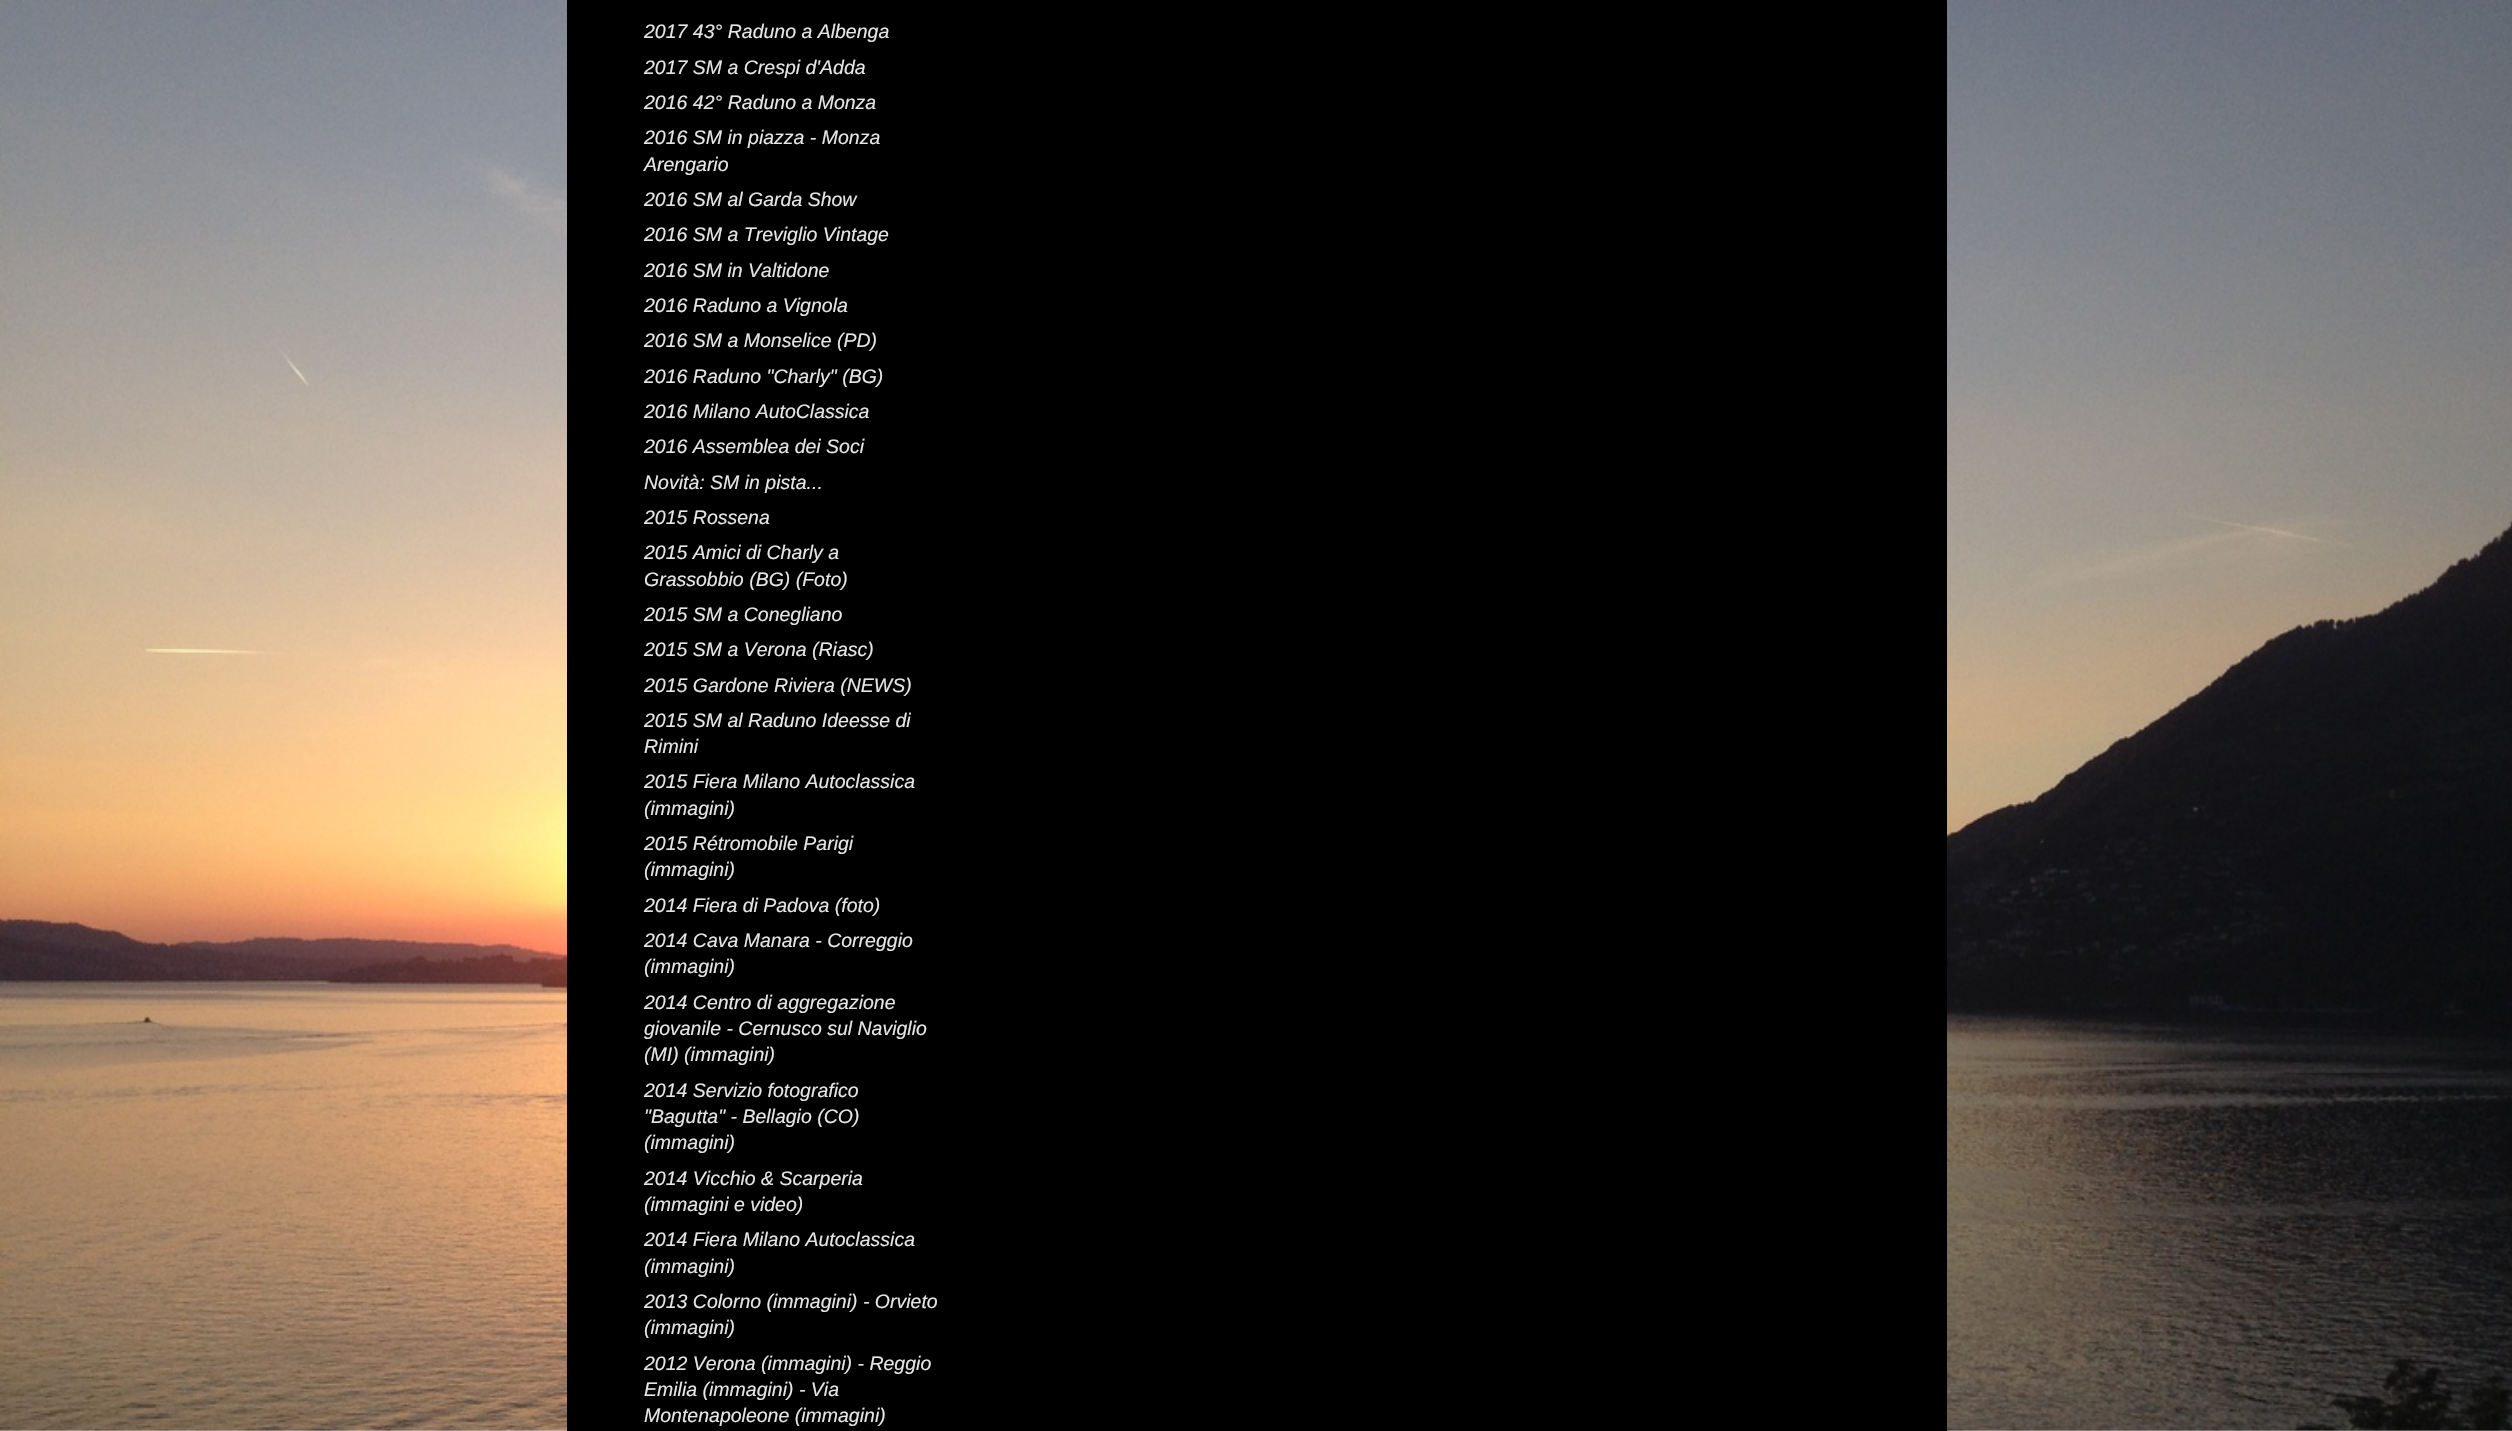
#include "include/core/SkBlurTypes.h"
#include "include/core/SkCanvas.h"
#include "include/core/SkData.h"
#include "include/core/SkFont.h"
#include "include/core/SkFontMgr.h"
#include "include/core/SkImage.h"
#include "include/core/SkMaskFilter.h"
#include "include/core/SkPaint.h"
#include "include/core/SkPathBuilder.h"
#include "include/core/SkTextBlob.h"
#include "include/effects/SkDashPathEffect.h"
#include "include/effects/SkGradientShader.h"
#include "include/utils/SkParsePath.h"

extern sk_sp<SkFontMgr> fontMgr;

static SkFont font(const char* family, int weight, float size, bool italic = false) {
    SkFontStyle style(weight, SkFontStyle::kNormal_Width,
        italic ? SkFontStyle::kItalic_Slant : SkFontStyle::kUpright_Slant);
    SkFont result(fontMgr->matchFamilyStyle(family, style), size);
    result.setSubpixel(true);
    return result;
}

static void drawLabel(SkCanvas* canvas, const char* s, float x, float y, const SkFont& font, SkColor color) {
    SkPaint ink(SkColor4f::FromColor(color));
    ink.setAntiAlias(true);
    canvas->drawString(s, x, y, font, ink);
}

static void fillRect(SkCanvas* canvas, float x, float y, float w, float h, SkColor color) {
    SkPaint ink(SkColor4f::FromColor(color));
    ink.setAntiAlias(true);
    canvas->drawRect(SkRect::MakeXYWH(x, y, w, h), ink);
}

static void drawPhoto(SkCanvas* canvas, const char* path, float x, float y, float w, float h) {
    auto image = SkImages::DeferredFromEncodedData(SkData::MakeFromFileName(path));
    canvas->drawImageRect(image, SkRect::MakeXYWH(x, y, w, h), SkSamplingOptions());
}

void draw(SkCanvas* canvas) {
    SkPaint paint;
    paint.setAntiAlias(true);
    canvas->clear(0xFFFFFFFF);
    drawPhoto(canvas, "assets/img1.png", 0, 0, 2512, 1431);
    fillRect(canvas, 567, 0, 1380, 1431, 0xFF000000);
    SkFont font1 = font("Liberation Sans", 400, 19.5f, true);
    drawLabel(canvas, "2017 43° Raduno a Albenga", 644, 38, font1, 0xFFE6E6E6);
    drawLabel(canvas, "2017 SM a Crespi d'Adda", 644, 74, font1, 0xFFE6E6E6);
    drawLabel(canvas, "2016 42° Raduno a Monza", 644, 109, font1, 0xFFE6E6E6);
    drawLabel(canvas, "2016 SM in piazza - Monza", 644, 144, font1, 0xFFE6E6E6);
    drawLabel(canvas, "Arengario", 644, 171, font1, 0xFFE6E6E6);
    drawLabel(canvas, "2016 SM al Garda Show", 644, 206, font1, 0xFFE6E6E6);
    drawLabel(canvas, "2016 SM a Treviglio Vintage", 644, 241, font1, 0xFFE6E6E6);
    drawLabel(canvas, "2016 SM in Valtidone", 644, 277, font1, 0xFFE6E6E6);
    drawLabel(canvas, "2016 Raduno a Vignola", 644, 312, font1, 0xFFE6E6E6);
    drawLabel(canvas, "2016 SM a Monselice (PD)", 644, 347, font1, 0xFFE6E6E6);
    drawLabel(canvas, "2016 Raduno \"Charly\" (BG)", 644, 383, font1, 0xFFE6E6E6);
    drawLabel(canvas, "2016 Milano AutoClassica", 644, 418, font1, 0xFFE6E6E6);
    drawLabel(canvas, "2016 Assemblea dei Soci", 644, 453, font1, 0xFFE6E6E6);
    drawLabel(canvas, "Novità: SM in pista...", 644, 489, font1, 0xFFE6E6E6);
    drawLabel(canvas, "2015 Rossena", 644, 524, font1, 0xFFE6E6E6);
    drawLabel(canvas, "2015 Amici di Charly a", 644, 559, font1, 0xFFE6E6E6);
    drawLabel(canvas, "Grassobbio (BG) (Foto)", 644, 586, font1, 0xFFE6E6E6);
    drawLabel(canvas, "2015 SM a Conegliano", 644, 621, font1, 0xFFE6E6E6);
    drawLabel(canvas, "2015 SM a Verona (Riasc)", 644, 656, font1, 0xFFE6E6E6);
    drawLabel(canvas, "2015 Gardone Riviera (NEWS)", 644, 692, font1, 0xFFE6E6E6);
    drawLabel(canvas, "2015 SM al Raduno Ideesse di", 644, 727, font1, 0xFFE6E6E6);
    drawLabel(canvas, "Rimini", 644, 753, font1, 0xFFE6E6E6);
    drawLabel(canvas, "2015 Fiera Milano Autoclassica", 644, 788, font1, 0xFFE6E6E6);
    drawLabel(canvas, "(immagini)", 644, 815, font1, 0xFFE6E6E6);
    drawLabel(canvas, "2015 Rétromobile Parigi", 644, 850, font1, 0xFFE6E6E6);
    drawLabel(canvas, "(immagini)", 644, 876, font1, 0xFFE6E6E6);
    drawLabel(canvas, "2014 Fiera di Padova (foto)", 644, 912, font1, 0xFFE6E6E6);
    drawLabel(canvas, "2014 Cava Manara - Correggio", 644, 947, font1, 0xFFE6E6E6);
    drawLabel(canvas, "(immagini)", 644, 973, font1, 0xFFE6E6E6);
    drawLabel(canvas, "2014 Centro di aggregazione", 644, 1009, font1, 0xFFE6E6E6);
    drawLabel(canvas, "giovanile - Cernusco sul Naviglio", 644, 1035, font1, 0xFFE6E6E6);
    drawLabel(canvas, "(MI) (immagini)", 644, 1061, font1, 0xFFE6E6E6);
    drawLabel(canvas, "2014 Servizio fotografico", 644, 1097, font1, 0xFFE6E6E6);
    drawLabel(canvas, "\"Bagutta\" - Bellagio (CO)", 644, 1123, font1, 0xFFE6E6E6);
    drawLabel(canvas, "(immagini)", 644, 1149, font1, 0xFFE6E6E6);
    drawLabel(canvas, "2014 Vicchio & Scarperia", 644, 1185, font1, 0xFFE6E6E6);
    drawLabel(canvas, "(immagini e video)", 644, 1211, font1, 0xFFE6E6E6);
    drawLabel(canvas, "2014 Fiera Milano Autoclassica", 644, 1246, font1, 0xFFE6E6E6);
    drawLabel(canvas, "(immagini)", 644, 1273, font1, 0xFFE6E6E6);
    drawLabel(canvas, "2013 Colorno (immagini) - Orvieto", 644, 1308, font1, 0xFFE6E6E6);
    drawLabel(canvas, "(immagini)", 644, 1334, font1, 0xFFE6E6E6);
    drawLabel(canvas, "2012 Verona (immagini) - Reggio", 644, 1370, font1, 0xFFE6E6E6);
    drawLabel(canvas, "Emilia (immagini) - Via", 644, 1396, font1, 0xFFE6E6E6);
    drawLabel(canvas, "Montenapoleone (immagini)", 644, 1422, font1, 0xFFE6E6E6);
}
